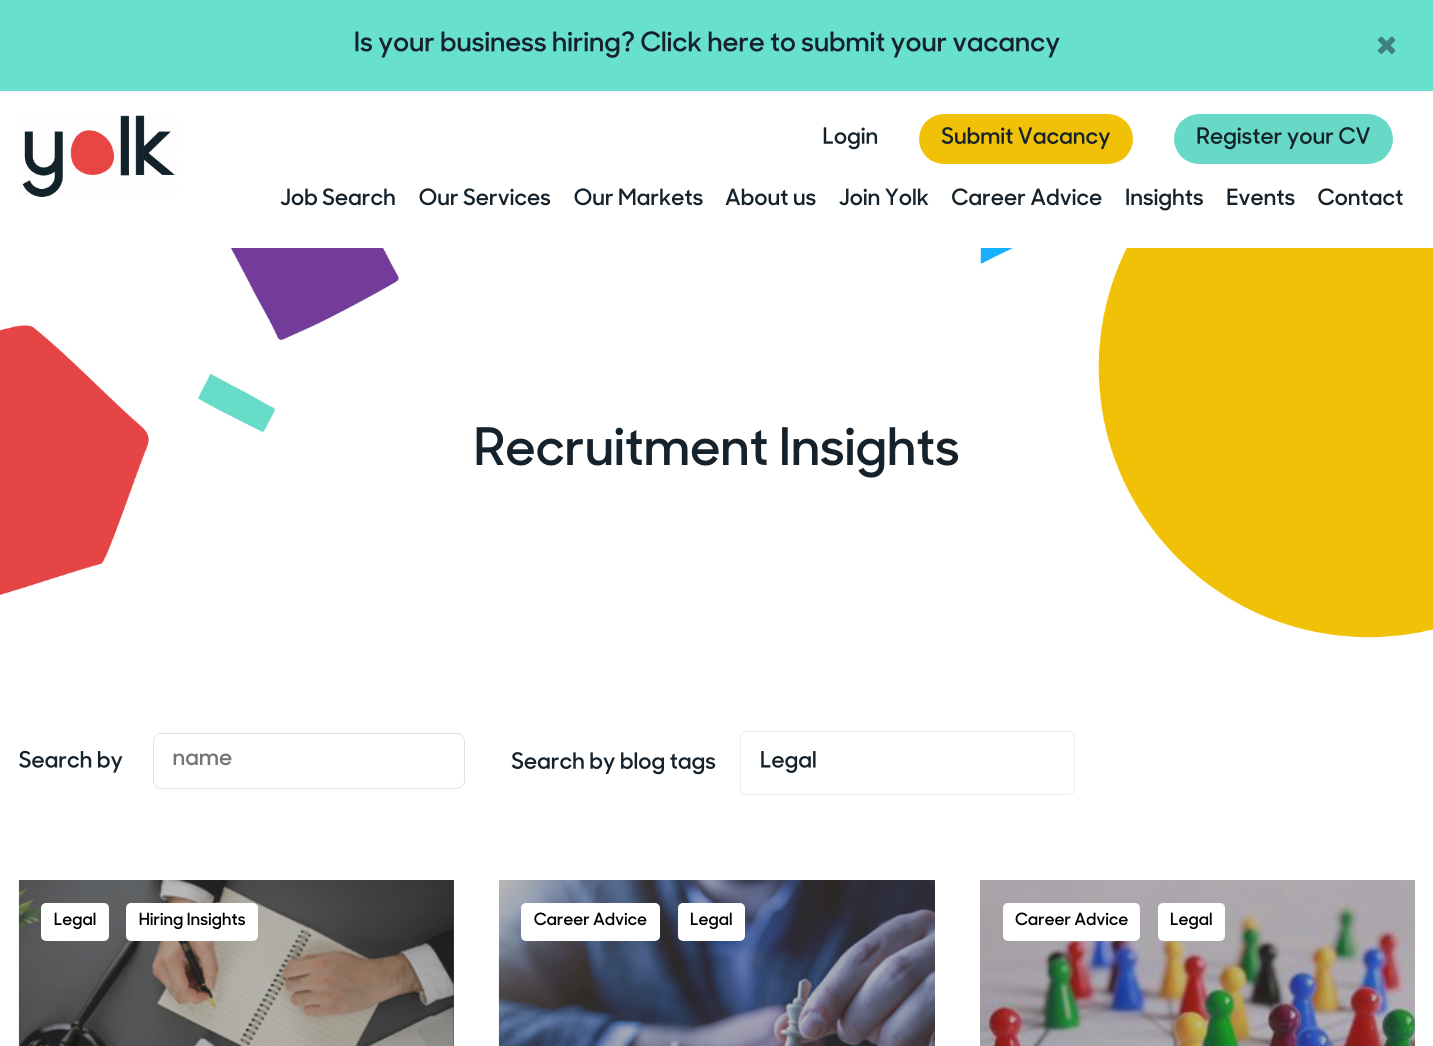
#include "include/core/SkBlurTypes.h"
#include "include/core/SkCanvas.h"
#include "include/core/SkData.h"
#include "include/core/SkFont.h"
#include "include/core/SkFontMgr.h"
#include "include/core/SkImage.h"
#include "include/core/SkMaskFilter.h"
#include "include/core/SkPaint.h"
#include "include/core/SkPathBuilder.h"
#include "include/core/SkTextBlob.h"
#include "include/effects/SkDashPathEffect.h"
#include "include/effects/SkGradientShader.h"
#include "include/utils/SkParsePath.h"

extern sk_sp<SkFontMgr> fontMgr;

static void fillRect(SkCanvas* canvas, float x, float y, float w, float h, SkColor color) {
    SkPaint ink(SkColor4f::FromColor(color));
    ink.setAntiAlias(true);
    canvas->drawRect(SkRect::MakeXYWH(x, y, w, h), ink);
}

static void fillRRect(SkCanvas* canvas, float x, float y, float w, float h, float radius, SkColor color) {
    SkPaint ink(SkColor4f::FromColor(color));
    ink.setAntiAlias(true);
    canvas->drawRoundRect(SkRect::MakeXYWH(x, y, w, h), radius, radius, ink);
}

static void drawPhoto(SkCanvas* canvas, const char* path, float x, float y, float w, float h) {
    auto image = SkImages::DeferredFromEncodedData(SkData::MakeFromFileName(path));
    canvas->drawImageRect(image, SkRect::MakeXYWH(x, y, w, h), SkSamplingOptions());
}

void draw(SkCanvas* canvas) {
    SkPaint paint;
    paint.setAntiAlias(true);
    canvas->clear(0xFFFFFFFF);
    fillRect(canvas, 0, 0, 1433, 91, 0xFF67E0CD);
    drawPhoto(canvas, "assets/img1.png", 355, 31, 705, 27);
    drawPhoto(canvas, "assets/img2.png", 1377, 36, 19, 18);
    drawPhoto(canvas, "assets/img3.png", 19, 115, 158, 84);
    drawPhoto(canvas, "assets/img4.png", 823, 127, 55, 23);
    fillRRect(canvas, 919, 114, 214, 50, 25, 0xFFF0C106);
    drawPhoto(canvas, "assets/img5.png", 941, 127, 169, 22);
    fillRRect(canvas, 1174, 114, 219, 50, 25, 0xFF67D9C6);
    drawPhoto(canvas, "assets/img6.png", 1197, 127, 173, 23);
    drawPhoto(canvas, "assets/img7.png", 280, 188, 115, 18);
    drawPhoto(canvas, "assets/img8.png", 419, 188, 132, 18);
    drawPhoto(canvas, "assets/img9.png", 574, 188, 129, 18);
    drawPhoto(canvas, "assets/img10.png", 725, 188, 91, 18);
    drawPhoto(canvas, "assets/img11.png", 839, 188, 90, 18);
    drawPhoto(canvas, "assets/img12.png", 952, 188, 150, 18);
    drawPhoto(canvas, "assets/img13.png", 1126, 188, 77, 23);
    drawPhoto(canvas, "assets/img14.png", 1227, 188, 68, 18);
    drawPhoto(canvas, "assets/img15.png", 1318, 188, 85, 18);
    drawPhoto(canvas, "assets/img16.png", 0, 248, 1433, 390);
    drawPhoto(canvas, "assets/img17.png", 476, 427, 483, 51);
    drawPhoto(canvas, "assets/img18.png", 19, 750, 104, 23);
    paint.setStroke(true);
    paint.setStrokeWidth(1);
    paint.setColor(0xFFE0E0E0);
    canvas->drawRoundRect(SkRect::MakeXYWH(153.5f, 733.5f, 311, 55), 7.5f, 7.5f, paint);
    drawPhoto(canvas, "assets/img19.png", 173, 753, 59, 13);
    drawPhoto(canvas, "assets/img20.png", 511, 752, 205, 23);
    paint.setColor(0xFFEBEBEB);
    canvas->drawRoundRect(SkRect::MakeXYWH(740.5f, 731.5f, 334, 63), 5.5f, 5.5f, paint);
    drawPhoto(canvas, "assets/img21.png", 761, 751, 55, 22);
    paint.setStroke(false);
    {
        const SkColor colors[] = {0xFF333333, 0xFF4D4D4D};
        const float stops[] = {0, 1};
        const SkPoint ends[] = {{236, 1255}, {236, 880}};
        paint.setShader(SkGradientShader::MakeLinear(ends, colors, stops, 2, SkTileMode::kClamp));
        paint.setAlpha(255);
    }
    canvas->drawRect(SkRect::MakeXYWH(19, 880, 435, 166), paint);
    drawPhoto(canvas, "assets/img22.png", 18, 880, 436, 166);
    fillRRect(canvas, 41, 903, 68, 38, 5, 0xFFFFFFFF);
    drawPhoto(canvas, "assets/img23.png", 54, 912, 42, 18);
    fillRRect(canvas, 126, 903, 132, 38, 5, 0xFFFFFFFF);
    drawPhoto(canvas, "assets/img24.png", 139, 912, 107, 18);
    {
        const SkColor colors[] = {0xFF333333, 0xFF4D4D4D};
        const float stops[] = {0, 1};
        const SkPoint ends[] = {{717, 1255}, {717, 880}};
        paint.setShader(SkGradientShader::MakeLinear(ends, colors, stops, 2, SkTileMode::kClamp));
        paint.setAlpha(255);
    }
    canvas->drawRect(SkRect::MakeXYWH(499, 880, 436, 166), paint);
    drawPhoto(canvas, "assets/img25.png", 498, 880, 437, 166);
    fillRRect(canvas, 521, 903, 139, 38, 5, 0xFFFFFFFF);
    drawPhoto(canvas, "assets/img26.png", 534, 912, 113, 14);
    fillRRect(canvas, 678, 903, 67, 38, 5, 0xFFFFFFFF);
    drawPhoto(canvas, "assets/img27.png", 690, 912, 42, 18);
    {
        const SkColor colors[] = {0xFF333333, 0xFF4D4D4D};
        const float stops[] = {0, 1};
        const SkPoint ends[] = {{1198, 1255}, {1198, 880}};
        paint.setShader(SkGradientShader::MakeLinear(ends, colors, stops, 2, SkTileMode::kClamp));
        paint.setAlpha(255);
    }
    canvas->drawRect(SkRect::MakeXYWH(980, 880, 435, 166), paint);
    drawPhoto(canvas, "assets/img28.png", 980, 880, 435, 166);
    fillRRect(canvas, 1003, 903, 137, 38, 5, 0xFFFFFFFF);
    drawPhoto(canvas, "assets/img29.png", 1015, 912, 113, 14);
    fillRRect(canvas, 1158, 903, 67, 38, 5, 0xFFFFFFFF);
    drawPhoto(canvas, "assets/img27.png", 1170, 912, 42, 18);
}
